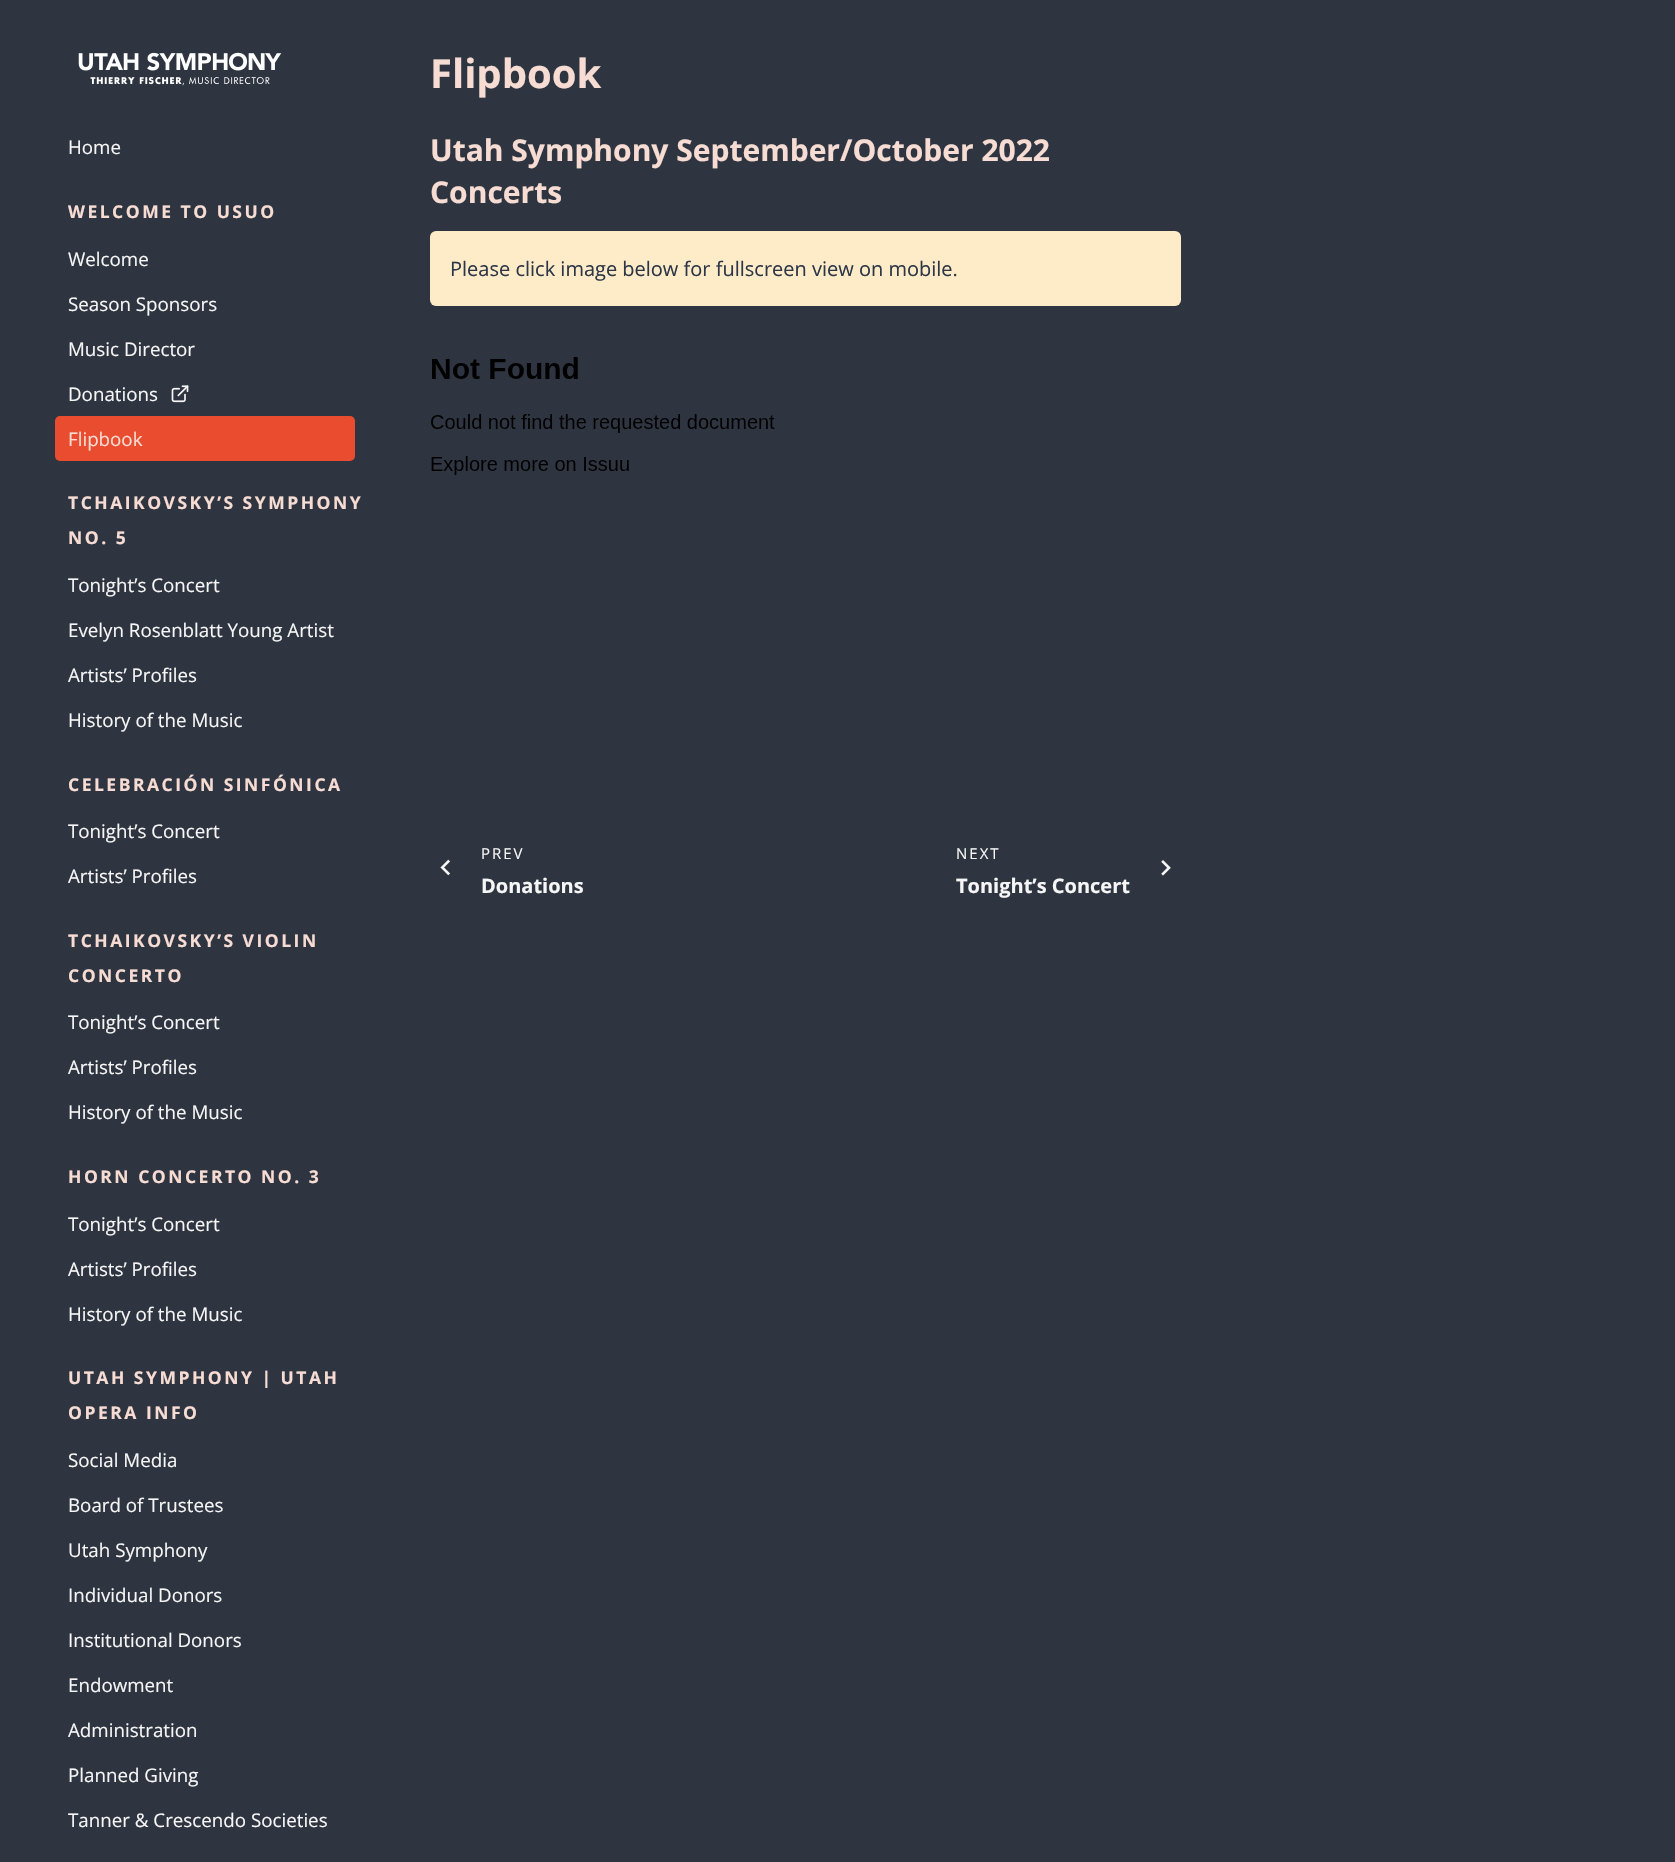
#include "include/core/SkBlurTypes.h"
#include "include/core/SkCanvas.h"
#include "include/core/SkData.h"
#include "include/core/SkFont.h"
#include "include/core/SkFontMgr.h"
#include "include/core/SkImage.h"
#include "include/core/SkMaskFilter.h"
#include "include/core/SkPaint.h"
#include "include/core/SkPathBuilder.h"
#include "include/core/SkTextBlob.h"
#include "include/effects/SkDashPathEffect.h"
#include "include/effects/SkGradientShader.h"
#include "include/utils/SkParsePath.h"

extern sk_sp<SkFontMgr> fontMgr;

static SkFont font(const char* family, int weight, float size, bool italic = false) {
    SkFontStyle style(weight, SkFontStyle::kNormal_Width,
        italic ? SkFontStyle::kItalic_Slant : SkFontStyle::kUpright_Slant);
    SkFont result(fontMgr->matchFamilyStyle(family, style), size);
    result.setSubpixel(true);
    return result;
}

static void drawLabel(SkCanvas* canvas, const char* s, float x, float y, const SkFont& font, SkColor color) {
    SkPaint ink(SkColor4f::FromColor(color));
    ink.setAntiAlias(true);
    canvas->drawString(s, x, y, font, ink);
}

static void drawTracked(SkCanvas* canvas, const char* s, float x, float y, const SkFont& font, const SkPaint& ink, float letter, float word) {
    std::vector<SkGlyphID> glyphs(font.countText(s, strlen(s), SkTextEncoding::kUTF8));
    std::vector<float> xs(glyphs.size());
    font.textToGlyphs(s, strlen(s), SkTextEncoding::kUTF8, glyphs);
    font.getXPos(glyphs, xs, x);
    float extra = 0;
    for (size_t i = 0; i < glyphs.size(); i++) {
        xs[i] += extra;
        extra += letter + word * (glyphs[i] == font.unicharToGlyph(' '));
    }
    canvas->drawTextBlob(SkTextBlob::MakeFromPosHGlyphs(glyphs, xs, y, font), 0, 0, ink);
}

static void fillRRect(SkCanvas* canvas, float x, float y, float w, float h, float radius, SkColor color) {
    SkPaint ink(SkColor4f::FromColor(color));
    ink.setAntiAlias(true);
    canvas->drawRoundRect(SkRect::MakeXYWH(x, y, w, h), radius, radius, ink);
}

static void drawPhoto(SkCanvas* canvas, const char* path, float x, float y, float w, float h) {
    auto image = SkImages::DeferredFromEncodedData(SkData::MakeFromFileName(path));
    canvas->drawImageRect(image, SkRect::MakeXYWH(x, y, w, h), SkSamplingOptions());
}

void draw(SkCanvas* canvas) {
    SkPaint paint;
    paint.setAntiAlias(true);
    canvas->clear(0xFF2E3440);
    drawPhoto(canvas, "assets/img1.png", 78, 52, 204, 34);
    SkFont font1 = font("Open Sans", 400, 18.75f);
    drawLabel(canvas, "Home", 68, 154, font1, 0xFFF6F6F6);
    SkFont font2 = font("Open Sans", 700, 17.5f);
    paint.setColor(0xFFF6DCD3);
    drawTracked(canvas, "WELCOME TO USUO", 68, 218, font2, paint, 2.5f, 0);
    drawLabel(canvas, "Welcome", 68, 266, font1, 0xFFF6F6F6);
    drawLabel(canvas, "Season Sponsors", 68, 311, font1, 0xFFF6F6F6);
    drawLabel(canvas, "Music Director", 68, 356, font1, 0xFFF6F6F6);
    drawLabel(canvas, "Donations", 68, 401, font1, 0xFFF6F6F6);
    drawPhoto(canvas, "assets/img2.png", 171, 385, 18, 18);
    fillRRect(canvas, 55, 416, 300, 45, 5, 0xFFE94C2E);
    drawLabel(canvas, "Flipbook", 68, 446, font1, 0xFFF6DCD3);
    drawTracked(canvas, "TCHAIKOVSKY’S SYMPHONY", 68, 509, font2, paint, 2.5f, 0);
    drawTracked(canvas, "NO. 5", 68, 544, font2, paint, 2.5f, 0);
    drawLabel(canvas, "Tonight’s Concert", 68, 592, font1, 0xFFF6F6F6);
    drawLabel(canvas, "Evelyn Rosenblatt Young Artist", 68, 637, font1, 0xFFF6F6F6);
    drawLabel(canvas, "Artists’ Profiles", 68, 682, font1, 0xFFF6F6F6);
    drawLabel(canvas, "History of the Music", 68, 727, font1, 0xFFF6F6F6);
    drawTracked(canvas, "CELEBRACIÓN SINFÓNICA", 68, 791, font2, paint, 2.5f, 0);
    drawLabel(canvas, "Tonight’s Concert", 68, 838, font1, 0xFFF6F6F6);
    drawLabel(canvas, "Artists’ Profiles", 68, 883, font1, 0xFFF6F6F6);
    drawTracked(canvas, "TCHAIKOVSKY’S VIOLIN", 68, 947, font2, paint, 2.5f, 0);
    drawTracked(canvas, "CONCERTO", 68, 982, font2, paint, 2.5f, 0);
    drawLabel(canvas, "Tonight’s Concert", 68, 1029, font1, 0xFFF6F6F6);
    drawLabel(canvas, "Artists’ Profiles", 68, 1074, font1, 0xFFF6F6F6);
    drawLabel(canvas, "History of the Music", 68, 1119, font1, 0xFFF6F6F6);
    drawTracked(canvas, "HORN CONCERTO NO. 3", 68, 1183, font2, paint, 2.5f, 0);
    drawLabel(canvas, "Tonight’s Concert", 68, 1231, font1, 0xFFF6F6F6);
    drawLabel(canvas, "Artists’ Profiles", 68, 1276, font1, 0xFFF6F6F6);
    drawLabel(canvas, "History of the Music", 68, 1321, font1, 0xFFF6F6F6);
    drawTracked(canvas, "UTAH SYMPHONY | UTAH", 68, 1384, font2, paint, 2.5f, 0);
    drawTracked(canvas, "OPERA INFO", 68, 1419, font2, paint, 2.5f, 0);
    drawLabel(canvas, "Social Media", 68, 1467, font1, 0xFFF6F6F6);
    drawLabel(canvas, "Board of Trustees", 68, 1512, font1, 0xFFF6F6F6);
    drawLabel(canvas, "Utah Symphony", 68, 1557, font1, 0xFFF6F6F6);
    drawLabel(canvas, "Individual Donors", 68, 1602, font1, 0xFFF6F6F6);
    drawLabel(canvas, "Institutional Donors", 68, 1647, font1, 0xFFF6F6F6);
    drawLabel(canvas, "Endowment", 68, 1692, font1, 0xFFF6F6F6);
    drawLabel(canvas, "Administration", 68, 1737, font1, 0xFFF6F6F6);
    drawLabel(canvas, "Planned Giving", 68, 1782, font1, 0xFFF6F6F6);
    drawLabel(canvas, "Tanner & Crescendo Societies", 68, 1827, font1, 0xFFF6F6F6);
    SkFont font3 = font("Open Sans", 700, 40);
    drawLabel(canvas, "Flipbook", 430, 88, font3, 0xFFF6DCD3);
    SkFont font4 = font("Open Sans", 700, 30);
    drawLabel(canvas, "Utah Symphony September/October 2022", 430, 161, font4, 0xFFF6DCD3);
    drawLabel(canvas, "Concerts", 430, 203, font4, 0xFFF6DCD3);
    fillRRect(canvas, 430, 231, 751, 75, 6, 0xFFFEEBC8);
    SkFont font5 = font("Open Sans", 400, 20);
    drawLabel(canvas, "Please click image below for fullscreen view on mobile.", 450, 276, font5, 0xFF2D3748);
    drawPhoto(canvas, "assets/img3.png", 431, 357, 344, 118);
    drawPhoto(canvas, "assets/img4.png", 440, 859, 10, 17);
    SkFont font6 = font("Open Sans", 400, 15);
    paint.setColor(0xFFF6F6F6);
    drawTracked(canvas, "PREV", 481, 859, font6, paint, 2, 0);
    SkFont font7 = font("Open Sans", 700, 20);
    drawLabel(canvas, "Donations", 481, 893, font7, 0xFFF6F6F6);
    drawTracked(canvas, "NEXT", 956, 859, font6, paint, 2, 0);
    drawLabel(canvas, "Tonight’s Concert", 956, 893, font7, 0xFFF6F6F6);
    drawPhoto(canvas, "assets/img5.png", 1161, 860, 10, 16);
}
